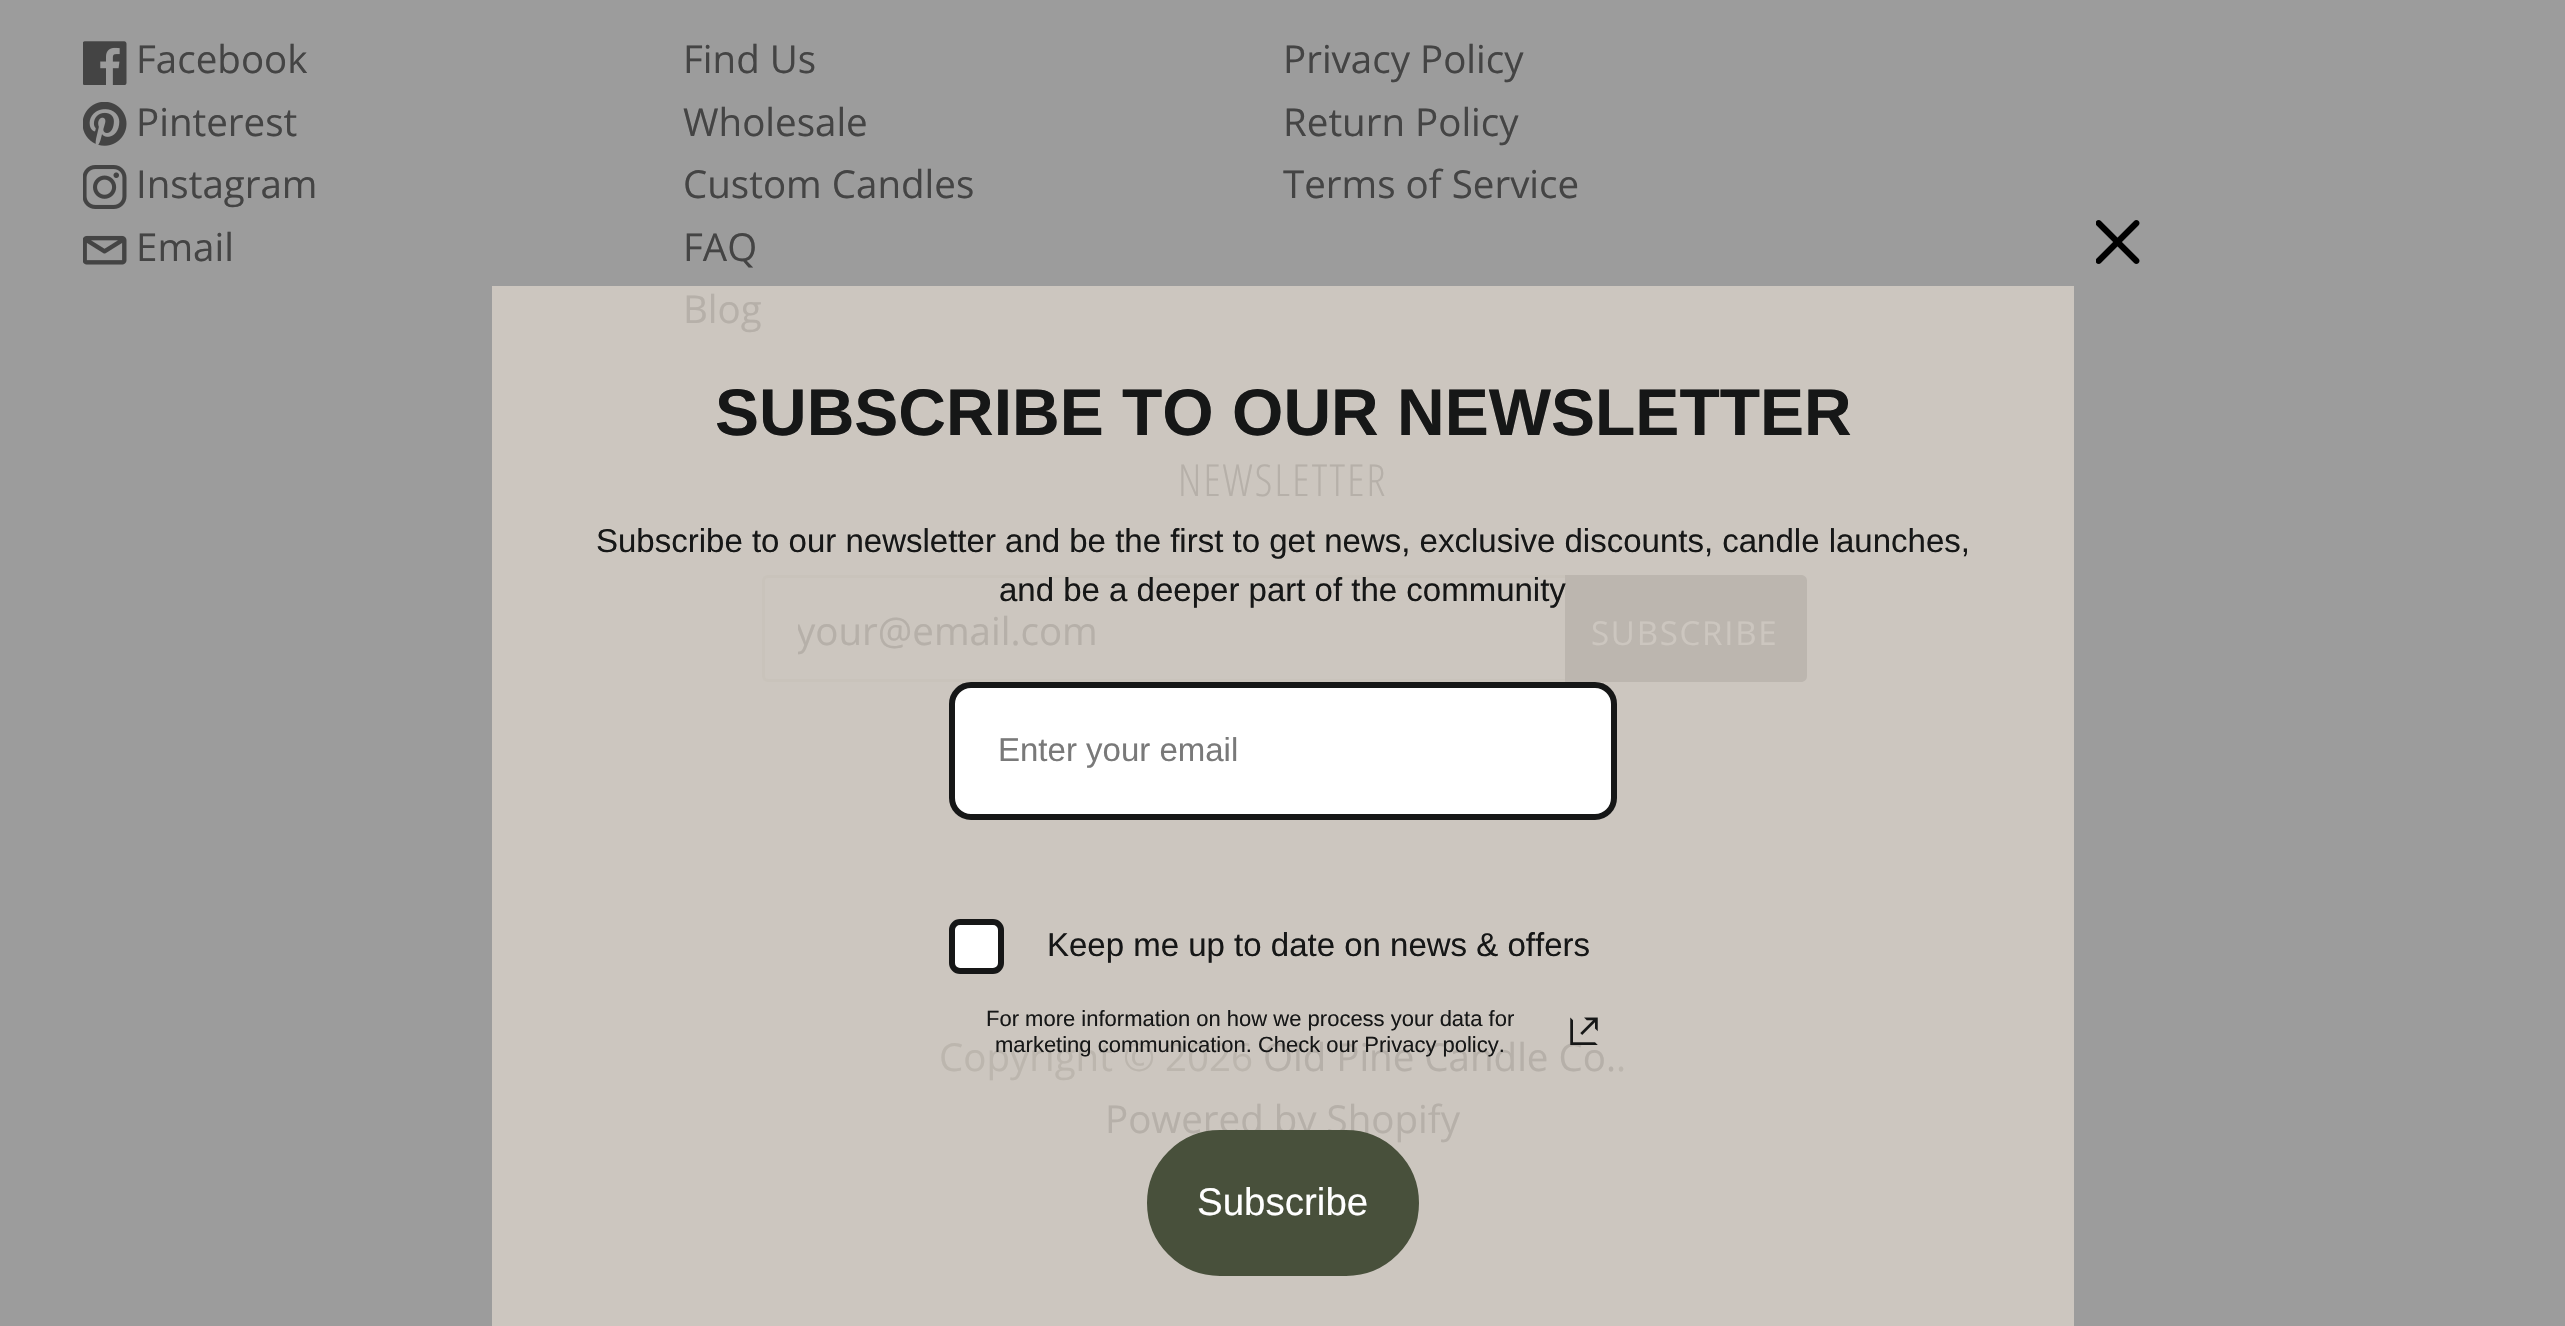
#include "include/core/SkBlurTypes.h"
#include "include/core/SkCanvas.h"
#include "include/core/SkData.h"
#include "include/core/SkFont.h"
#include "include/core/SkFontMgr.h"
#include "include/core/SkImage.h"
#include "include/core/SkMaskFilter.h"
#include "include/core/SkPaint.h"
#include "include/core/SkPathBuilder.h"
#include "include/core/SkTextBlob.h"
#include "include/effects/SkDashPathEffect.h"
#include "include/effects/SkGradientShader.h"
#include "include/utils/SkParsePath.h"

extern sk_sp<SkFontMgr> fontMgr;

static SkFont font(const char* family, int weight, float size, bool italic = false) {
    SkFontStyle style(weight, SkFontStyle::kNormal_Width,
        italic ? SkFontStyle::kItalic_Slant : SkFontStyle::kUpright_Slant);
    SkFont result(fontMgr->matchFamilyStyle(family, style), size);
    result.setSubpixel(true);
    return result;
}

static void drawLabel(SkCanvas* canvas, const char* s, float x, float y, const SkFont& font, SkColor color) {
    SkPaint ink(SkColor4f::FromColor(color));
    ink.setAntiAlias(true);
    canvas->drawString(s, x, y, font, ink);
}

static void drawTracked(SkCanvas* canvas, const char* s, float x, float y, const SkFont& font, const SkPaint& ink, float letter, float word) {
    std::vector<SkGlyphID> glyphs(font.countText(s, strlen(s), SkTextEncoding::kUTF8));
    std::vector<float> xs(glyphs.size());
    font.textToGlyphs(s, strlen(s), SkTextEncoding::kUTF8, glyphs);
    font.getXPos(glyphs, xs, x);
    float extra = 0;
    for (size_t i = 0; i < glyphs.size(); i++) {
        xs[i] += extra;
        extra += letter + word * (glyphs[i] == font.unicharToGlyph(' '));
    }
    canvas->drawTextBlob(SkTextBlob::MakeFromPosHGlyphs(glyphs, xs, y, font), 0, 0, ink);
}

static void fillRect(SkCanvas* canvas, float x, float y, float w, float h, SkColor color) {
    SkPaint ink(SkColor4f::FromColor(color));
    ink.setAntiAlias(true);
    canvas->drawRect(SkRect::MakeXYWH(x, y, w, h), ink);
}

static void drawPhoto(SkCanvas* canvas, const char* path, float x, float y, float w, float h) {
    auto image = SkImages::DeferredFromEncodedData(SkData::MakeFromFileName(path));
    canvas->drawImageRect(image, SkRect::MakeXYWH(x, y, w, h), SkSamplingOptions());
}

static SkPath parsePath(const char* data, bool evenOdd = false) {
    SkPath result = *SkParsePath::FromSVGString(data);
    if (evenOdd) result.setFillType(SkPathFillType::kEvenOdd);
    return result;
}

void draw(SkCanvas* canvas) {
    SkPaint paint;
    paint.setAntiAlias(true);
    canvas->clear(0xFF9C9C9C);
    fillRect(canvas, 492, 286, 1582, 1040, 0xFFCCC6BF);
    drawPhoto(canvas, "assets/img1.png", 83, 41, 44, 44);
    SkFont font1 = font("Open Sans", 400, 38.5f);
    drawLabel(canvas, "Facebook", 136, 73, font1, 0xFF444444);
    drawPhoto(canvas, "assets/img2.png", 83, 102, 44, 44);
    drawLabel(canvas, "Pinterest", 136, 136, font1, 0xFF444444);
    drawPhoto(canvas, "assets/img3.png", 83, 165, 44, 44);
    drawLabel(canvas, "Instagram", 136, 198, font1, 0xFF444444);
    drawPhoto(canvas, "assets/img4.png", 83, 235, 44, 30);
    drawLabel(canvas, "Email", 136, 261, font1, 0xFF444444);
    drawLabel(canvas, "Find Us", 683, 73, font1, 0xFF444444);
    drawLabel(canvas, "Wholesale", 683, 136, font1, 0xFF444444);
    drawLabel(canvas, "Custom Candles", 683, 198, font1, 0xFF444444);
    drawLabel(canvas, "FAQ", 683, 261, font1, 0xFF444444);
    drawLabel(canvas, "Blog", 683, 323, font1, 0xFFB6B0A9);
    drawLabel(canvas, "Privacy Policy", 1283, 73, font1, 0xFF444444);
    drawLabel(canvas, "Return Policy", 1283, 136, font1, 0xFF444444);
    drawLabel(canvas, "Terms of Service", 1283, 198, font1, 0xFF444444);
    SkFont font2 = font("Open Sans Condensed", 300, 44);
    paint.setColor(0xFFB6B0A9);
    drawTracked(canvas, "NEWSLETTER", 1178, 496, font2, paint, 2.25f, 0);
    paint.setStroke(true);
    paint.setStrokeWidth(3);
    paint.setColor(0xFFC9C3BB);
    canvas->drawRoundRect(SkRect::MakeXYWH(763.5f, 576.5f, 932, 104), 4.5f, 4.5f, paint);
    canvas->save();
    canvas->clipRect(SkRect::MakeXYWH(798, 602, 618, 53));
    drawLabel(canvas, "your@email.com", 796, 645, font1, 0xFFB6B0A9);
    canvas->restore();
    paint.setStroke(false);
    paint.setColor(0xFFBCB6AF);
    canvas->drawPath(parsePath("M1565 575H1801C1804.5 575 1807 577.5 1807 581V676C1807 679.5 1804.5 682 1801 682H1565Z"), paint);
    SkFont font3 = font("Open Sans", 400, 33);
    paint.setColor(0xFFCCC6BF);
    drawTracked(canvas, "SUBSCRIBE", 1591, 645, font3, paint, 1.75f, 0);
    drawLabel(canvas, "Copyright © 2026", 939, 1071, font1, 0xFFBCB6AE);
    drawLabel(canvas, "Old Pine Candle Co.", 1263, 1071, font1, 0xFFB6B0A9);
    drawLabel(canvas, ".", 1616, 1071, font1, 0xFFBCB6AE);
    drawLabel(canvas, "Powered by Shopify", 1105, 1133, font1, 0xFFB6B0A9);
    drawPhoto(canvas, "assets/img5.png", 2096, 220, 44, 44);
    SkFont font4 = font("Liberation Sans", 700, 66);
    drawLabel(canvas, "SUBSCRIBE TO OUR NEWSLETTER", 715, 435, font4, 0xFF161717);
    SkFont font5 = font("Liberation Sans", 400, 33);
    drawLabel(canvas, "Subscribe to our newsletter and be the first to get news, exclusive discounts, candle launches,", 596, 552, font5, 0xFF161717);
    drawLabel(canvas, "and be a deeper part of the community", 999, 601, font5, 0xFF161717);
    paint.setColor(0xFFFFFFFF);
    canvas->drawRoundRect(SkRect::MakeXYWH(952, 685, 662, 132), 19, 19, paint);
    paint.setStroke(true);
    paint.setStrokeWidth(6);
    paint.setColor(0xFF161717);
    canvas->drawRoundRect(SkRect::MakeXYWH(952, 685, 662, 132), 19, 19, paint);
    drawLabel(canvas, "Enter your email", 998, 761, font5, 0xFF797979);
    paint.setStroke(false);
    paint.setColor(0xFFFFFFFF);
    canvas->drawRoundRect(SkRect::MakeXYWH(952, 922, 49, 49), 8, 8, paint);
    paint.setStroke(true);
    paint.setColor(0xFF161717);
    canvas->drawRoundRect(SkRect::MakeXYWH(952, 922, 49, 49), 8, 8, paint);
    drawLabel(canvas, "Keep me up to date on news & offers", 1047, 956, font5, 0xFF161717);
    SkFont font6 = font("Liberation Sans", 400, 22);
    drawLabel(canvas, "For more information on how we process your data for", 986, 1026, font6, 0xFF161717);
    drawLabel(canvas, "marketing communication. Check our Privacy policy.", 995, 1052, font6, 0xFF161717);
    drawPhoto(canvas, "assets/img6.png", 1570, 1017, 28, 28);
    paint.setStroke(false);
    paint.setColor(0xFF48503B);
    canvas->drawRoundRect(SkRect::MakeXYWH(1150, 1133, 266, 140), 70, 70, paint);
    paint.setStroke(true);
    canvas->drawRoundRect(SkRect::MakeXYWH(1150, 1133, 266, 140), 70, 70, paint);
    SkFont font7 = font("Liberation Sans", 400, 38.5f);
    drawLabel(canvas, "Subscribe", 1197, 1215, font7, 0xFFFFFFFF);
}
